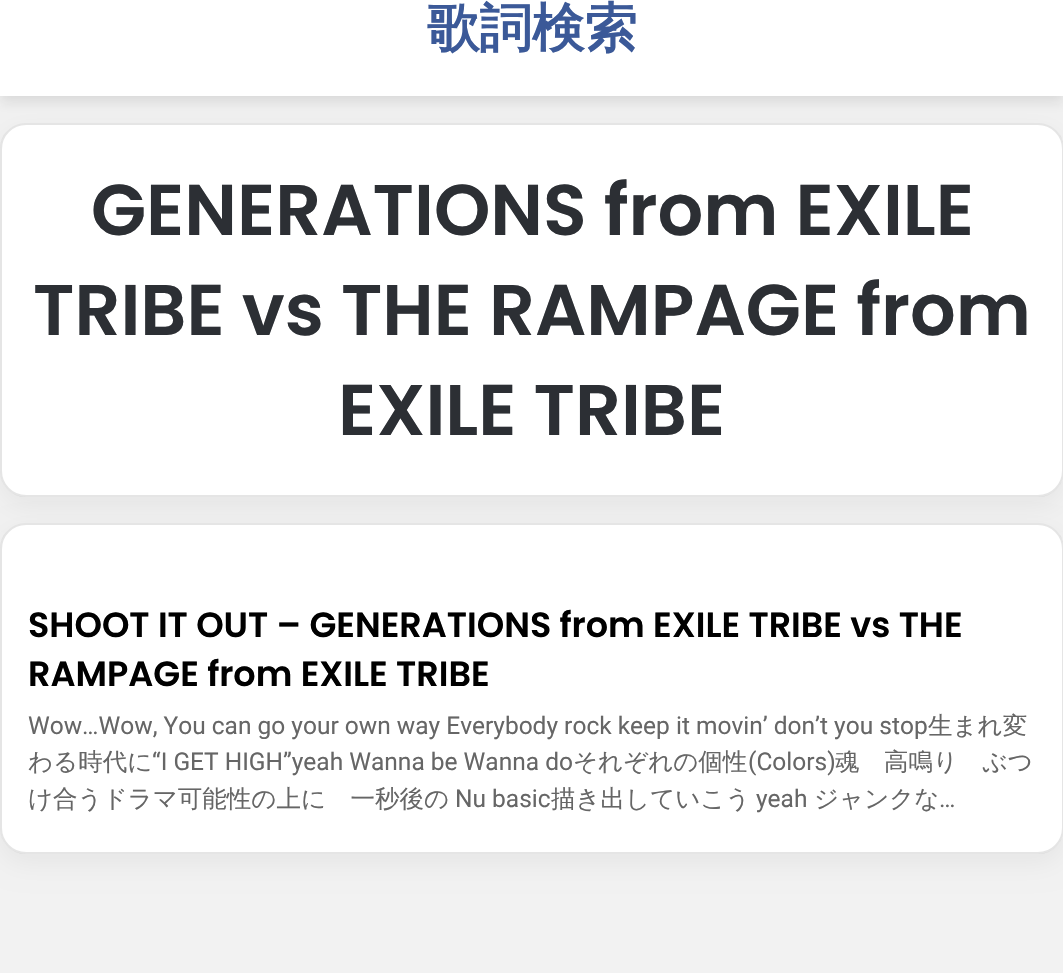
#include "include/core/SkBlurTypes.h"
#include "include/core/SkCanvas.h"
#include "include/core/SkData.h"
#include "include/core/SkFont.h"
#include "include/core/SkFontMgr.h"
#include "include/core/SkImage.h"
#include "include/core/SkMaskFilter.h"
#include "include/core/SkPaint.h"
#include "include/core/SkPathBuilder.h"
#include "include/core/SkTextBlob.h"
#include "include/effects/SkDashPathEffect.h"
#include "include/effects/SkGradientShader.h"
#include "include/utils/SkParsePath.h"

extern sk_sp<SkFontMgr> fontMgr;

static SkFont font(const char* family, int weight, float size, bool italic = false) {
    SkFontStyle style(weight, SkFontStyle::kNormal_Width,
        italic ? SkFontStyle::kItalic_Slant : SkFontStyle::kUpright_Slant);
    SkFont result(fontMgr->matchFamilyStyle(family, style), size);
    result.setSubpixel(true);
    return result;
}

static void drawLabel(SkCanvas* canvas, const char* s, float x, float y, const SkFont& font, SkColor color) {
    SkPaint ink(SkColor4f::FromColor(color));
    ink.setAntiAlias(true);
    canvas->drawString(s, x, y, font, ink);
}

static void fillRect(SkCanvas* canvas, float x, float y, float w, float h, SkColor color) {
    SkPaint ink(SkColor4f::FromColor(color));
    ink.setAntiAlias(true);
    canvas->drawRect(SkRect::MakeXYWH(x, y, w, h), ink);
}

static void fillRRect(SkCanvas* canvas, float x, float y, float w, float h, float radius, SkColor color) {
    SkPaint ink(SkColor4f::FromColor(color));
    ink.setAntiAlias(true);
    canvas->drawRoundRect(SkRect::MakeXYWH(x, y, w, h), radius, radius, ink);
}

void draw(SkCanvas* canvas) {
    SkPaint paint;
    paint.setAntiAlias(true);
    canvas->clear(0xFFF2F2F2);
    paint.setColor(0x1A000000);
    paint.setMaskFilter(SkMaskFilter::MakeBlur(kNormal_SkBlurStyle, 6));
    canvas->drawRect(SkRect::MakeXYWH(0, -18, 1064, 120), paint);
    paint.setMaskFilter(nullptr);
    paint.setColor(0x0D000000);
    paint.setMaskFilter(SkMaskFilter::MakeBlur(kNormal_SkBlurStyle, 13));
    canvas->drawRoundRect(SkRect::MakeXYWH(0, 131, 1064, 375), 26, 26, paint);
    paint.setMaskFilter(nullptr);
    fillRect(canvas, 0, 0, 1063, 96, 0xFFFFFFFF);
    SkFont font1 = font("WenQuanYi Zen Hei", 700, 52.5f);
    drawLabel(canvas, "歌詞検索", 427, 46, font1, 0xFF3B5998);
    fillRRect(canvas, 0, 123, 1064, 374, 26, 0xFFFFFFFF);
    paint.setStroke(true);
    paint.setStrokeWidth(2);
    paint.setColor(0x1A000000);
    canvas->drawRoundRect(SkRect::MakeXYWH(1, 124, 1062, 372), 25, 25, paint);
    SkFont font2 = font("Poppins", 600, 71.75f);
    drawLabel(canvas, "GENERATIONS from EXILE", 91, 235, font2, 0xFF2C2F34);
    drawLabel(canvas, "TRIBE vs THE RAMPAGE from", 33, 335, font2, 0xFF2C2F34);
    drawLabel(canvas, "EXILE TRIBE", 338, 435, font2, 0xFF2C2F34);
    paint.setStroke(false);
    paint.setColor(0x0D000000);
    paint.setMaskFilter(SkMaskFilter::MakeBlur(kNormal_SkBlurStyle, 13));
    canvas->drawRoundRect(SkRect::MakeXYWH(0, 532, 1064, 331), 26, 26, paint);
    paint.setMaskFilter(nullptr);
    fillRRect(canvas, 0, 523, 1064, 331, 26, 0xFFFFFFFF);
    paint.setStroke(true);
    paint.setColor(0x1A000000);
    canvas->drawRoundRect(SkRect::MakeXYWH(1, 524, 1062, 329), 25, 25, paint);
    SkFont font3 = font("Poppins", 600, 35);
    drawLabel(canvas, "SHOOT IT OUT – GENERATIONS from EXILE TRIBE vs THE", 28, 637, font3, 0xFF000000);
    drawLabel(canvas, "RAMPAGE from EXILE TRIBE", 28, 686, font3, 0xFF000000);
    SkFont font4 = font("Roboto", 400, 24.5f);
    drawLabel(canvas, "Wow…Wow, You can go your own way Everybody rock keep it movin’ don’t you stop", 28, 734, font4, 0xFF666666);
    SkFont font5 = font("WenQuanYi Zen Hei", 500, 24.5f);
    drawLabel(canvas, "生まれ変", 928, 734, font5, 0xFF666666);
    drawLabel(canvas, "わる時代に", 28, 770, font5, 0xFF666666);
    drawLabel(canvas, "“I GET HIGH”yeah Wanna be Wanna do", 152, 770, font4, 0xFF666666);
    drawLabel(canvas, "それぞれの個性", 573, 770, font5, 0xFF666666);
    drawLabel(canvas, "(Colors)", 748, 770, font4, 0xFF666666);
    drawLabel(canvas, "魂　高鳴り　ぶつ", 835, 770, font5, 0xFF666666);
    drawLabel(canvas, "け合うドラマ可能性の上に　一秒後の", 28, 807, font5, 0xFF666666);
    drawLabel(canvas, "Nu basic", 455, 807, font4, 0xFF666666);
    drawLabel(canvas, "描き出していこう", 551, 807, font5, 0xFF666666);
    drawLabel(canvas, "yeah", 756, 807, font4, 0xFF666666);
    drawLabel(canvas, "ジャンクな", 814, 807, font5, 0xFF666666);
    drawLabel(canvas, "…", 939, 807, font4, 0xFF666666);
}
